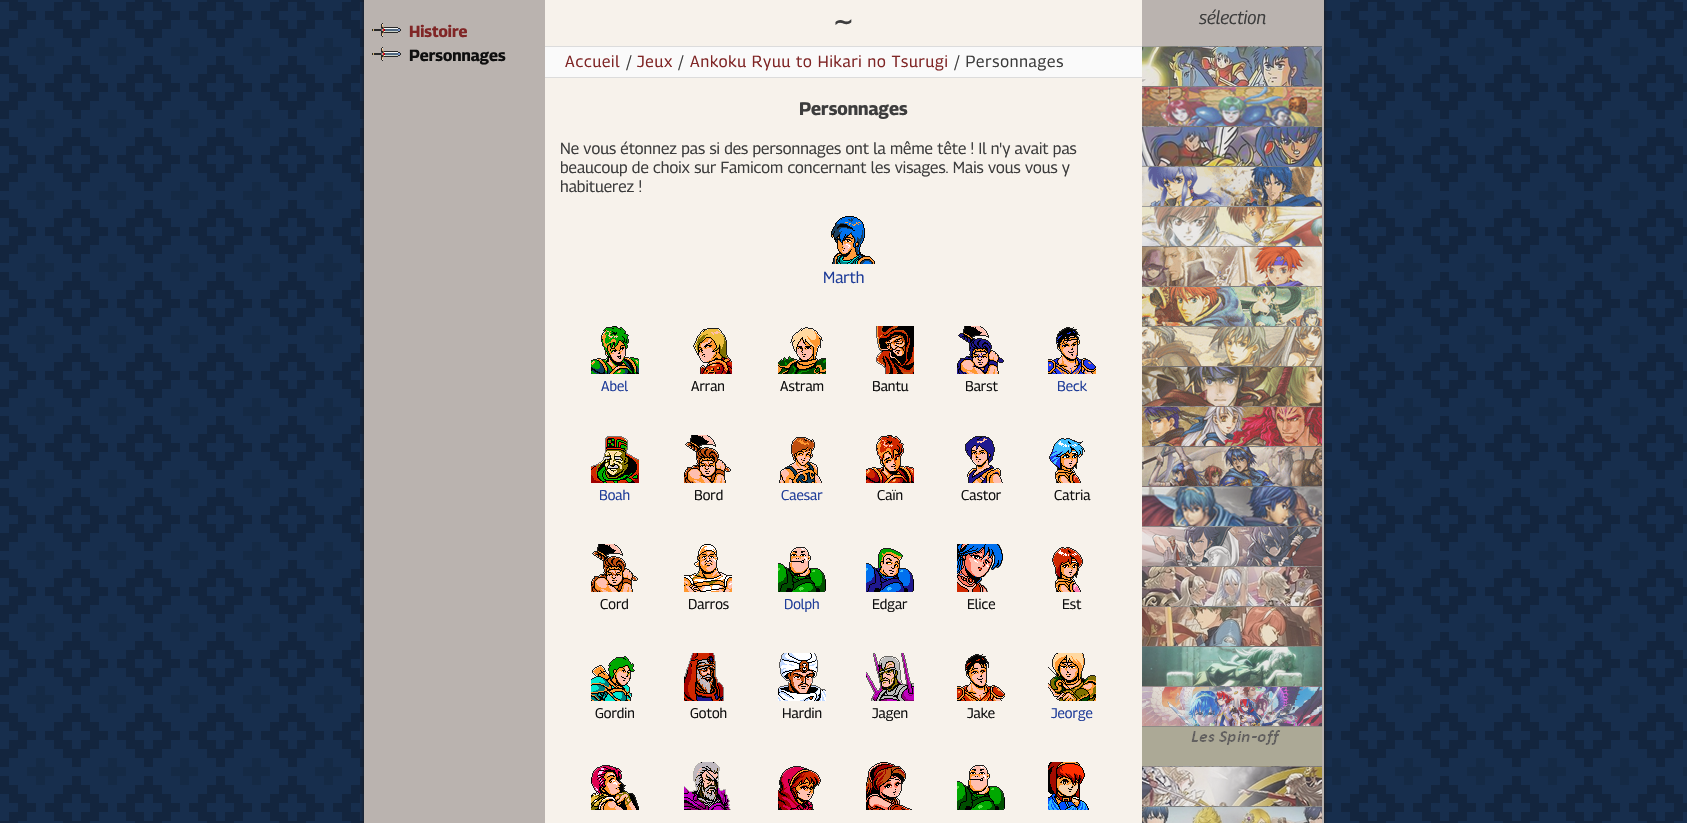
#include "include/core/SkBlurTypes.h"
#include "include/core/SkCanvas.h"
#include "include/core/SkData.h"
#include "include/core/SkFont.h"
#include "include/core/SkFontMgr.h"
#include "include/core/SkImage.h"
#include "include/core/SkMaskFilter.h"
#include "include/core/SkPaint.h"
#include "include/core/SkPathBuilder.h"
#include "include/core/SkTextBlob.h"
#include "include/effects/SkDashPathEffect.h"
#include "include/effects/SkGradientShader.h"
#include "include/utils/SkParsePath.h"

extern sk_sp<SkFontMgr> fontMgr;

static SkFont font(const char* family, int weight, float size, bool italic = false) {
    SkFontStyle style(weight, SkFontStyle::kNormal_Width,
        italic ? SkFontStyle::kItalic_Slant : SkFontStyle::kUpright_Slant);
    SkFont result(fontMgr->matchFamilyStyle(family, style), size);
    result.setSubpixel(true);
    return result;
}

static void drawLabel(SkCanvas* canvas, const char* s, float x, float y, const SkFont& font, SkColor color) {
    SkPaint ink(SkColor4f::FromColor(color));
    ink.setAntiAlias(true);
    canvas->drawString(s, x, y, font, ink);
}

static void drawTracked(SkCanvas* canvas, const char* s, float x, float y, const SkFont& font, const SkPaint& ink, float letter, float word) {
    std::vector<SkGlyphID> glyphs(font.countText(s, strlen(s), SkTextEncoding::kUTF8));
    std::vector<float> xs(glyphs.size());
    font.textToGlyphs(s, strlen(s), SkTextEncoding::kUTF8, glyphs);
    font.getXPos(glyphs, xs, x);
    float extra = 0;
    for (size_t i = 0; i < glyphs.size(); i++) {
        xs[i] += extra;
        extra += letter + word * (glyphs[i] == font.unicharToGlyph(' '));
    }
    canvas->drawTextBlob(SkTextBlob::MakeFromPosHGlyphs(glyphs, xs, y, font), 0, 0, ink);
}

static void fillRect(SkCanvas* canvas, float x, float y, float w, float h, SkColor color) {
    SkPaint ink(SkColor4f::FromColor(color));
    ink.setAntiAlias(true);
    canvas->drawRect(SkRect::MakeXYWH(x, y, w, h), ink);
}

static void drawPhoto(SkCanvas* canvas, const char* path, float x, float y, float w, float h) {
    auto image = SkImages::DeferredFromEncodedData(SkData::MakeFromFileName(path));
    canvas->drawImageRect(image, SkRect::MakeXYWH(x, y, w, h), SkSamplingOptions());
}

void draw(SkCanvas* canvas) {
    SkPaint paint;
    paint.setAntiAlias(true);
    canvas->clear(0xFF172E4D);
    drawPhoto(canvas, "assets/img1.png", 0, 0, 1687, 823);
    paint.setColor(0xFF1C1A19);
    paint.setMaskFilter(SkMaskFilter::MakeBlur(kNormal_SkBlurStyle, 2));
    canvas->drawRoundRect(SkRect::MakeXYWH(1142, -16, 182, 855), 10, 10, paint);
    paint.setMaskFilter(nullptr);
    fillRect(canvas, 1142, 0, 182, 823, 0xFFBAB3AF);
    SkFont font1 = font("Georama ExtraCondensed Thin", 400, 18.5f, true);
    drawLabel(canvas, "sélection", 1199, 24, font1, 0xFF3D3D3D);
    drawPhoto(canvas, "assets/img2.png", 1142, 46, 180, 40);
    fillRect(canvas, 1142, 46, 180, 1, 0xB3808080);
    drawPhoto(canvas, "assets/img3.png", 1142, 86, 180, 40);
    fillRect(canvas, 1142, 86, 180, 1, 0xB3808080);
    drawPhoto(canvas, "assets/img4.png", 1142, 126, 180, 40);
    fillRect(canvas, 1142, 126, 180, 1, 0xB3808080);
    drawPhoto(canvas, "assets/img5.png", 1142, 166, 180, 40);
    fillRect(canvas, 1142, 166, 180, 1, 0xB3808080);
    drawPhoto(canvas, "assets/img6.png", 1142, 206, 180, 40);
    fillRect(canvas, 1142, 206, 180, 1, 0xB3808080);
    drawPhoto(canvas, "assets/img7.png", 1142, 246, 180, 40);
    fillRect(canvas, 1142, 246, 180, 1, 0xB3808080);
    drawPhoto(canvas, "assets/img8.png", 1142, 286, 180, 40);
    fillRect(canvas, 1142, 286, 180, 1, 0xB3808080);
    drawPhoto(canvas, "assets/img9.png", 1142, 326, 180, 40);
    fillRect(canvas, 1142, 326, 180, 1, 0xB3808080);
    drawPhoto(canvas, "assets/img10.png", 1142, 366, 180, 40);
    fillRect(canvas, 1142, 366, 180, 1, 0xB3808080);
    drawPhoto(canvas, "assets/img11.png", 1142, 406, 180, 40);
    fillRect(canvas, 1142, 406, 180, 1, 0xB3808080);
    drawPhoto(canvas, "assets/img12.png", 1142, 446, 180, 40);
    fillRect(canvas, 1142, 446, 180, 1, 0xB3808080);
    drawPhoto(canvas, "assets/img13.png", 1142, 486, 180, 40);
    fillRect(canvas, 1142, 486, 180, 1, 0xB3808080);
    drawPhoto(canvas, "assets/img14.png", 1142, 526, 180, 40);
    fillRect(canvas, 1142, 526, 180, 1, 0xB3808080);
    drawPhoto(canvas, "assets/img15.png", 1142, 566, 180, 40);
    fillRect(canvas, 1142, 566, 180, 1, 0xB3808080);
    drawPhoto(canvas, "assets/img16.png", 1142, 606, 180, 40);
    fillRect(canvas, 1142, 606, 180, 1, 0xB3808080);
    drawPhoto(canvas, "assets/img17.png", 1142, 646, 180, 40);
    fillRect(canvas, 1142, 646, 180, 1, 0xB3808080);
    drawPhoto(canvas, "assets/img18.png", 1142, 686, 180, 40);
    fillRect(canvas, 1142, 686, 180, 1, 0xB3808080);
    drawPhoto(canvas, "assets/img19.png", 1142, 727, 180, 39);
    fillRect(canvas, 1142, 726, 180, 1, 0xFF8D8C87);
    drawPhoto(canvas, "assets/img20.png", 1142, 766, 180, 40);
    fillRect(canvas, 1142, 766, 180, 1, 0xB3808080);
    drawPhoto(canvas, "assets/img21.png", 1142, 806, 180, 17);
    fillRect(canvas, 1142, 806, 180, 1, 0xB3808080);
    paint.setMaskFilter(SkMaskFilter::MakeBlur(kNormal_SkBlurStyle, 2));
    canvas->drawRoundRect(SkRect::MakeXYWH(364, -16, 181, 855), 10, 10, paint);
    paint.setMaskFilter(nullptr);
    fillRect(canvas, 364, 0, 181, 823, 0xFFBAB3AF);
    drawPhoto(canvas, "assets/img22.png", 372, 23, 29, 14);
    SkFont font2 = font("Georama ExtraCondensed Thin", 700, 16);
    drawLabel(canvas, "Histoire", 409, 37, font2, 0xFF802626);
    drawPhoto(canvas, "assets/img22.png", 372, 47, 29, 14);
    drawLabel(canvas, "Personnages", 409, 61, font2, 0xFF0F0F0F);
    fillRect(canvas, 545, 0, 597, 823, 0xFFF7F2EB);
    SkFont font3 = font("DejaVu Sans", 700, 24);
    drawLabel(canvas, "∼", 833, 30, font3, 0xFF3D3D3D);
    fillRect(canvas, 545, 47, 597, 30, 0xFFFAFAFA);
    fillRect(canvas, 545, 46, 597, 1, 0xFFDCDCDC);
    fillRect(canvas, 545, 77, 597, 1, 0xFFDCDCDC);
    SkFont font4 = font("Georama ExtraCondensed Thin", 400, 16);
    paint.setColor(0xFF802626);
    drawTracked(canvas, "Accueil", 565, 67, font4, paint, 0.8f, 0);
    paint.setColor(0xFF3D3D3D);
    drawTracked(canvas, "/", 626, 67, font4, paint, 0.8f, 0);
    paint.setColor(0xFF802626);
    drawTracked(canvas, "Jeux", 637, 67, font4, paint, 0.8f, 0);
    paint.setColor(0xFF3D3D3D);
    drawTracked(canvas, "/", 678, 67, font4, paint, 0.8f, 0);
    paint.setColor(0xFF802626);
    drawTracked(canvas, "Ankoku Ryuu to Hikari no Tsurugi", 690, 67, font4, paint, 0.8f, 0);
    paint.setColor(0xFF3D3D3D);
    drawTracked(canvas, "/ Personnages", 954, 67, font4, paint, 0.8f, 0);
    SkFont font5 = font("Georama ExtraCondensed Thin", 700, 18);
    drawLabel(canvas, "Personnages", 799, 115, font5, 0xFF3D3D3D);
    drawLabel(canvas, "Ne vous étonnez pas si des personnages ont la même tête ! Il n'y avait pas", 560, 154, font4, 0xFF3D3D3D);
    drawLabel(canvas, "beaucoup de choix sur Famicom concernant les visages. Mais vous vous y", 560, 173, font4, 0xFF3D3D3D);
    drawLabel(canvas, "habituerez !", 560, 192, font4, 0xFF3D3D3D);
    drawPhoto(canvas, "assets/img23.png", 831, 216, 44, 48);
    drawLabel(canvas, "Marth", 823, 283, font4, 0xFF1F3D99);
    drawPhoto(canvas, "assets/img24.png", 591, 326, 48, 48);
    SkFont font6 = font("Georama ExtraCondensed Thin", 400, 14);
    drawLabel(canvas, "Abel", 601, 391, font6, 0xFF1F3D99);
    drawPhoto(canvas, "assets/img25.png", 693, 328, 39, 46);
    drawLabel(canvas, "Arran", 691, 391, font6, 0xFF0F0F0F);
    drawPhoto(canvas, "assets/img26.png", 778, 327, 48, 47);
    drawLabel(canvas, "Astram", 780, 391, font6, 0xFF0F0F0F);
    drawPhoto(canvas, "assets/img27.png", 876, 326, 38, 48);
    drawLabel(canvas, "Bantu", 872, 391, font6, 0xFF0F0F0F);
    drawPhoto(canvas, "assets/img28.png", 957, 326, 47, 48);
    drawLabel(canvas, "Barst", 965, 391, font6, 0xFF0F0F0F);
    drawPhoto(canvas, "assets/img29.png", 1048, 327, 48, 47);
    drawLabel(canvas, "Beck", 1057, 391, font6, 0xFF1F3D99);
    drawPhoto(canvas, "assets/img30.png", 591, 436, 48, 47);
    drawLabel(canvas, "Boah", 599, 500, font6, 0xFF1F3D99);
    drawPhoto(canvas, "assets/img31.png", 684, 435, 47, 48);
    drawLabel(canvas, "Bord", 694, 500, font6, 0xFF0F0F0F);
    drawPhoto(canvas, "assets/img32.png", 779, 437, 43, 46);
    drawLabel(canvas, "Caesar", 781, 500, font6, 0xFF1F3D99);
    drawPhoto(canvas, "assets/img33.png", 866, 435, 48, 48);
    drawLabel(canvas, "Caïn", 877, 500, font6, 0xFF0F0F0F);
    drawPhoto(canvas, "assets/img34.png", 965, 436, 38, 47);
    drawLabel(canvas, "Castor", 961, 500, font6, 0xFF0F0F0F);
    drawPhoto(canvas, "assets/img35.png", 1049, 438, 36, 45);
    drawLabel(canvas, "Catria", 1054, 500, font6, 0xFF0F0F0F);
    drawPhoto(canvas, "assets/img31.png", 591, 544, 47, 48);
    drawLabel(canvas, "Cord", 600, 609, font6, 0xFF0F0F0F);
    drawPhoto(canvas, "assets/img36.png", 684, 544, 48, 48);
    drawLabel(canvas, "Darros", 688, 609, font6, 0xFF0F0F0F);
    drawPhoto(canvas, "assets/img37.png", 778, 547, 48, 45);
    drawLabel(canvas, "Dolph", 784, 609, font6, 0xFF1F3D99);
    drawPhoto(canvas, "assets/img38.png", 866, 548, 48, 44);
    drawLabel(canvas, "Edgar", 872, 609, font6, 0xFF0F0F0F);
    drawPhoto(canvas, "assets/img39.png", 957, 544, 46, 48);
    drawLabel(canvas, "Elice", 967, 609, font6, 0xFF0F0F0F);
    drawPhoto(canvas, "assets/img40.png", 1052, 547, 31, 45);
    drawLabel(canvas, "Est", 1062, 609, font6, 0xFF0F0F0F);
    drawPhoto(canvas, "assets/img41.png", 591, 656, 44, 45);
    drawLabel(canvas, "Gordin", 595, 718, font6, 0xFF0F0F0F);
    drawPhoto(canvas, "assets/img42.png", 684, 653, 40, 48);
    drawLabel(canvas, "Gotoh", 690, 718, font6, 0xFF0F0F0F);
    drawPhoto(canvas, "assets/img43.png", 778, 653, 48, 48);
    drawLabel(canvas, "Hardin", 782, 718, font6, 0xFF0F0F0F);
    drawPhoto(canvas, "assets/img44.png", 866, 653, 48, 48);
    drawLabel(canvas, "Jagen", 872, 718, font6, 0xFF0F0F0F);
    drawPhoto(canvas, "assets/img45.png", 957, 654, 48, 47);
    drawLabel(canvas, "Jake", 967, 718, font6, 0xFF0F0F0F);
    drawPhoto(canvas, "assets/img46.png", 1048, 653, 48, 48);
    drawLabel(canvas, "Jeorge", 1051, 718, font6, 0xFF1F3D99);
    drawPhoto(canvas, "assets/img47.png", 591, 765, 48, 45);
    drawPhoto(canvas, "assets/img48.png", 684, 762, 47, 48);
    drawPhoto(canvas, "assets/img49.png", 778, 766, 43, 44);
    drawPhoto(canvas, "assets/img50.png", 866, 762, 46, 48);
    drawPhoto(canvas, "assets/img37.png", 957, 765, 48, 45);
    drawPhoto(canvas, "assets/img51.png", 1048, 762, 41, 48);
}
